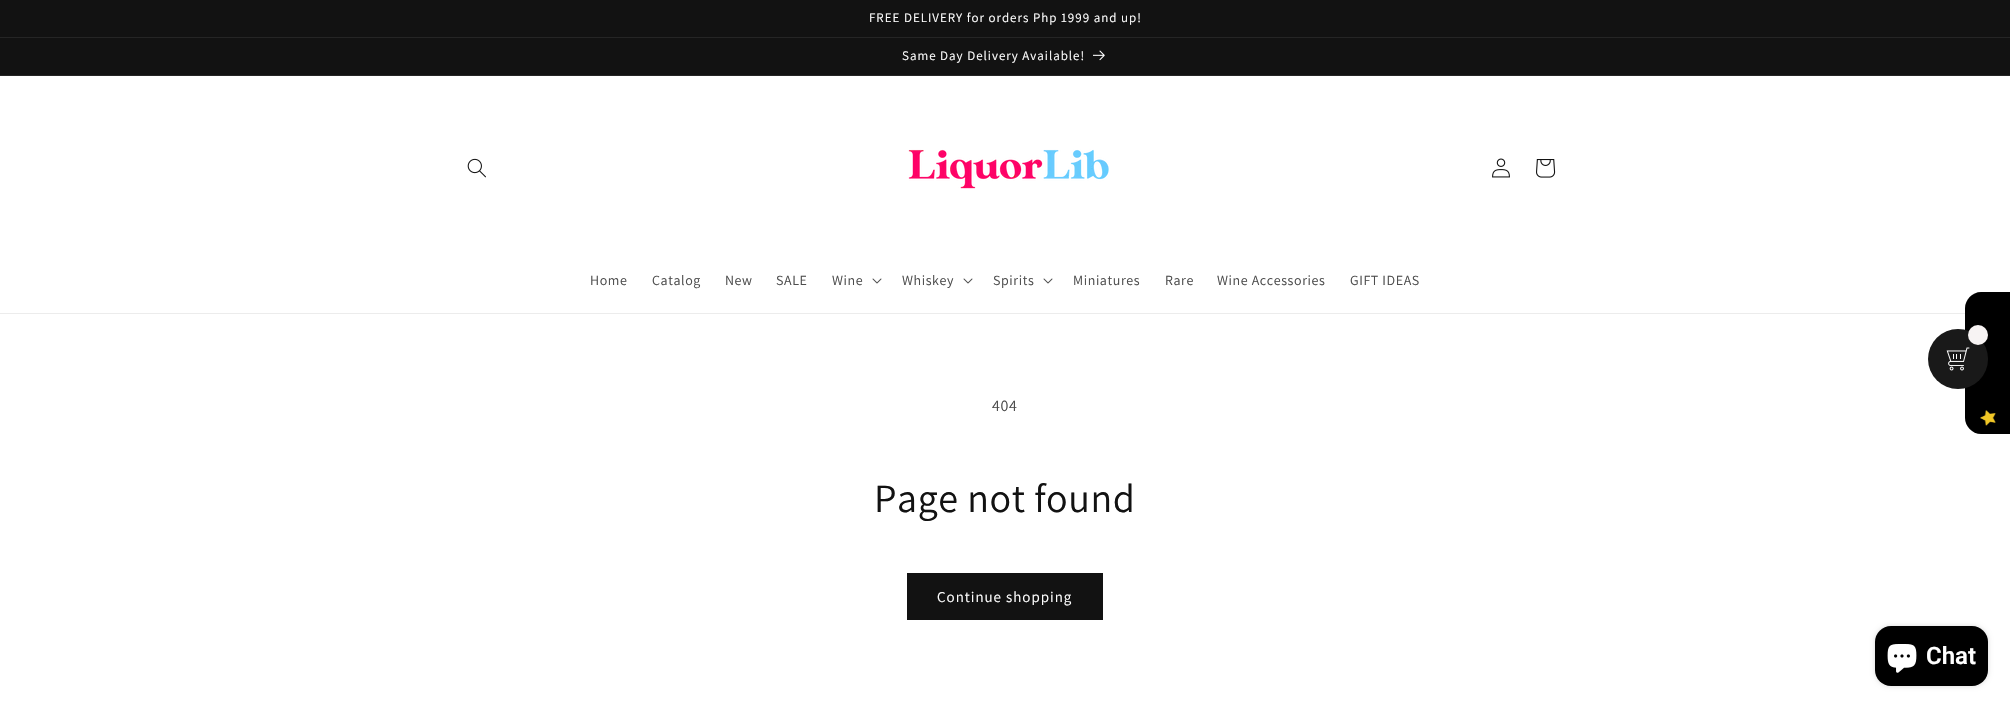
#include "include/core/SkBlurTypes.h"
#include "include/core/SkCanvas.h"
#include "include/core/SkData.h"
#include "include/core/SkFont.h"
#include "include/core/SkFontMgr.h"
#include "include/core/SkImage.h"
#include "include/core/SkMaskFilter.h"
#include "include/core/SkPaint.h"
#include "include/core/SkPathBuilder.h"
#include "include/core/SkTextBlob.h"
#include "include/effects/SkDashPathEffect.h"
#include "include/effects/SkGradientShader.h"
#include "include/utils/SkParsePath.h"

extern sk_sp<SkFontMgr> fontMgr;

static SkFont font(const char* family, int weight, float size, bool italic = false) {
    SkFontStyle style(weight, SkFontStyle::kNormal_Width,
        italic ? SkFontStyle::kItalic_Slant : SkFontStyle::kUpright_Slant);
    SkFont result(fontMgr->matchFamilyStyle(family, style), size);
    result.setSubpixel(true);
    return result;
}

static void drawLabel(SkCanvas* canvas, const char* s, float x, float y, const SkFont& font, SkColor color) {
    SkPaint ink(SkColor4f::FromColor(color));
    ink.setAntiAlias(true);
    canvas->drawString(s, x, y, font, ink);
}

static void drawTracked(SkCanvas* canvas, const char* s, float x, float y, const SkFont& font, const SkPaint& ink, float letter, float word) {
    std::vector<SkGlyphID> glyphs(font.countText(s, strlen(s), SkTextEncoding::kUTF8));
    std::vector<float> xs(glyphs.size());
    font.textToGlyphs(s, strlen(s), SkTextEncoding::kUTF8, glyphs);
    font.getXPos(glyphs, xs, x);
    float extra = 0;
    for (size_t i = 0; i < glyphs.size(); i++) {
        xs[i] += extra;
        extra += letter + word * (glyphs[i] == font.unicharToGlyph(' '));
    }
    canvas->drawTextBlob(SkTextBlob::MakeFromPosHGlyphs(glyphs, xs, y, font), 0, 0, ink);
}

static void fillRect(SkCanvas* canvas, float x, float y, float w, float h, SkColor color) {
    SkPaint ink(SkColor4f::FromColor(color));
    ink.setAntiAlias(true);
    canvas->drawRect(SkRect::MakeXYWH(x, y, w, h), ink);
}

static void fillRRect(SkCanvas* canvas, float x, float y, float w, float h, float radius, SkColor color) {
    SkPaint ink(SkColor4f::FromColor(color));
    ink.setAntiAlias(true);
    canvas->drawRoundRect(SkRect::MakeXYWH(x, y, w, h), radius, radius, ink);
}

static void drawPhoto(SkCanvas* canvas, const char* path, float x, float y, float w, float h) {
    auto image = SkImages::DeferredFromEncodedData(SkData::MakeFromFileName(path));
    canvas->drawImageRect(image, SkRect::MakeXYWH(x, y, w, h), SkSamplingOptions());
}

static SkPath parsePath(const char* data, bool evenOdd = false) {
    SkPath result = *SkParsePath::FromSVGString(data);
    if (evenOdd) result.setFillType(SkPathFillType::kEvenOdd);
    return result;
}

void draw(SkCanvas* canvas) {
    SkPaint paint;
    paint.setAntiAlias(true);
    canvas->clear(0xFFFFFFFF);
    fillRect(canvas, 0, 0, 2010, 37, 0xFF121212);
    fillRect(canvas, 0, 37, 2010, 1, 0xFF252525);
    SkFont font1 = font("Assistant", 400, 13);
    paint.setColor(0xFFFFFFFF);
    drawTracked(canvas, "FREE DELIVERY for orders Php 1999 and up!", 869, 22, font1, paint, 1, 0);
    fillRect(canvas, 0, 38, 2010, 37, 0xFF121212);
    fillRect(canvas, 0, 75, 2010, 1, 0xFF252525);
    drawTracked(canvas, "Same Day Delivery Available!", 902, 60, font1, paint, 1, 0);
    drawPhoto(canvas, "assets/img1.png", 1093, 50, 12, 11);
    fillRect(canvas, 0, 313, 1965, 1, 0xFFECECEC);
    drawPhoto(canvas, "assets/img2.png", 467, 158, 19, 20);
    drawPhoto(canvas, "assets/img3.png", 908, 149, 201, 40);
    drawPhoto(canvas, "assets/img4.png", 1492, 158, 18, 20);
    drawPhoto(canvas, "assets/img5.png", 1536, 159, 20, 19);
    SkFont font2 = font("Assistant", 400, 14);
    paint.setColor(0xFF4D4D4D);
    drawTracked(canvas, "Home", 590, 285, font2, paint, 0.6f, 0);
    drawTracked(canvas, "Catalog", 652, 285, font2, paint, 0.6f, 0);
    drawTracked(canvas, "New", 725, 285, font2, paint, 0.6f, 0);
    drawTracked(canvas, "SALE", 776, 285, font2, paint, 0.6f, 0);
    drawTracked(canvas, "Wine", 832, 285, font2, paint, 0.6f, 0);
    drawPhoto(canvas, "assets/img6.png", 872, 278, 10, 6);
    drawTracked(canvas, "Whiskey", 902, 285, font2, paint, 0.6f, 0);
    drawPhoto(canvas, "assets/img6.png", 963, 278, 10, 6);
    drawTracked(canvas, "Spirits", 993, 285, font2, paint, 0.6f, 0);
    drawPhoto(canvas, "assets/img6.png", 1043, 278, 10, 6);
    drawTracked(canvas, "Miniatures", 1073, 285, font2, paint, 0.6f, 0);
    drawTracked(canvas, "Rare", 1165, 285, font2, paint, 0.6f, 0);
    drawTracked(canvas, "Wine Accessories", 1217, 285, font2, paint, 0.6f, 0);
    drawTracked(canvas, "GIFT IDEAS", 1350, 285, font2, paint, 0.6f, 0);
    paint.setColor(0xFF000000);
    canvas->drawPath(parsePath("M1965 418V308C1965 300 1972 292 1981 292H2010V434H1981C1972 434 1965 426 1965 418Z"), paint);
    drawPhoto(canvas, "assets/img7.png", 1980, 410, 16, 16);
    paint.setColor(0xFF191919);
    canvas->drawCircle(1958, 359, 30, paint);
    paint.setColor(0xFFF7F3F3);
    canvas->drawCircle(1978, 335, 10, paint);
    drawPhoto(canvas, "assets/img8.png", 1946, 347, 24, 24);
    SkFont font3 = font("Assistant", 400, 16);
    paint.setColor(0xFF4D4D4D);
    drawTracked(canvas, "404", 992, 411, font3, paint, 0.6f, 0);
    SkFont font4 = font("Assistant", 400, 40);
    paint.setColor(0xFF121212);
    drawTracked(canvas, "Page not found", 874, 512, font4, paint, 0.6f, 0);
    fillRect(canvas, 907, 573, 196, 47, 0xFF121212);
    SkFont font5 = font("Assistant", 400, 15);
    paint.setColor(0xFFFFFFFF);
    drawTracked(canvas, "Continue shopping", 937, 602, font5, paint, 1, 0);
    paint.setColor(0x26000000);
    paint.setMaskFilter(SkMaskFilter::MakeBlur(kNormal_SkBlurStyle, 2.5f));
    canvas->drawRoundRect(SkRect::MakeXYWH(1875, 626, 113, 60), 16, 16, paint);
    paint.setMaskFilter(nullptr);
    fillRRect(canvas, 1875, 626, 113, 60, 16, 0xFF000000);
    drawPhoto(canvas, "assets/img9.png", 1887, 644, 30, 29);
    SkFont font6 = font("Roboto", 600, 24);
    drawLabel(canvas, "Chat", 1926, 664, font6, 0xFFFFFFFF);
}
